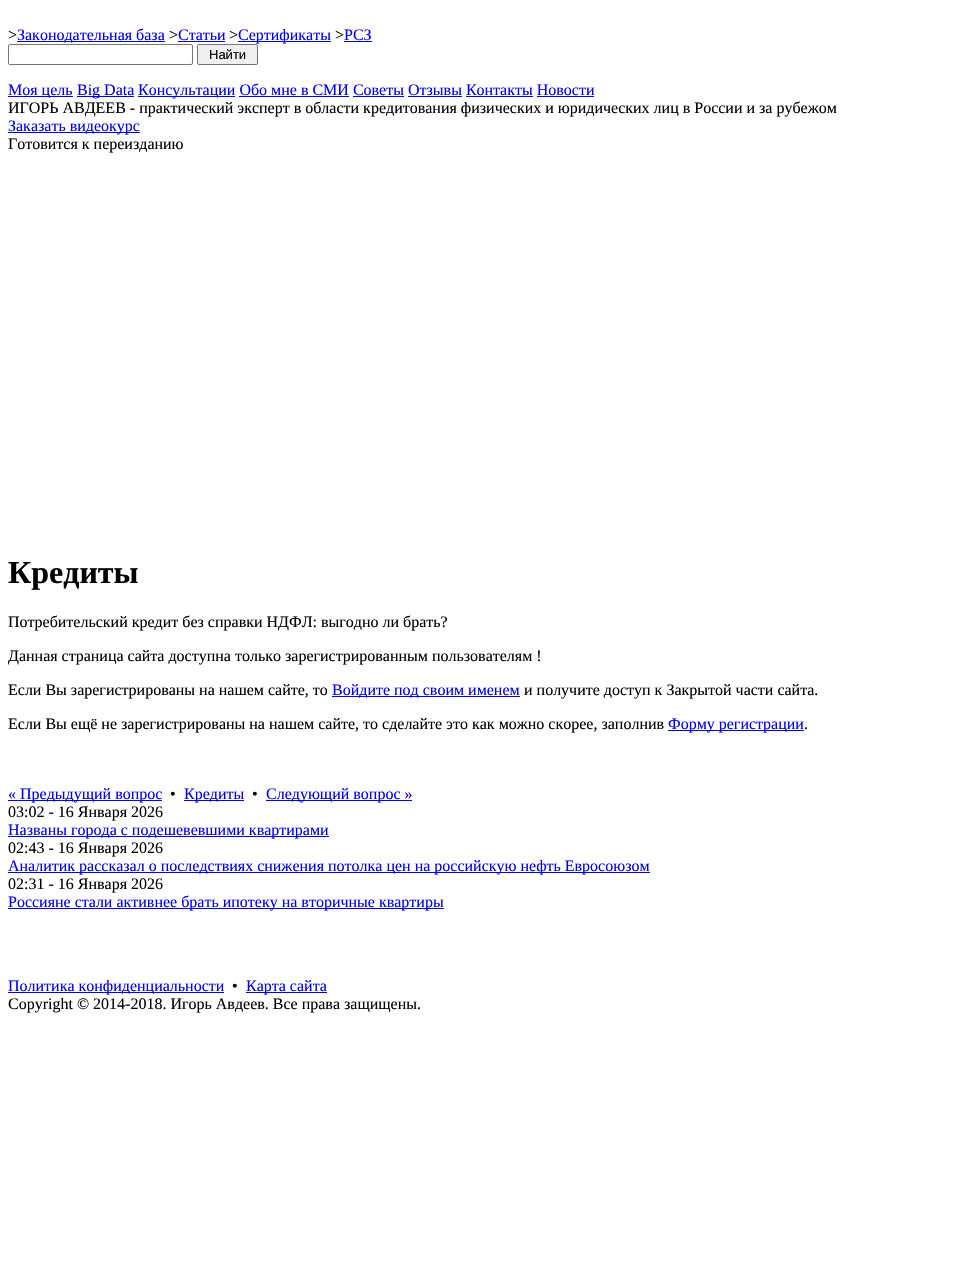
#include "include/core/SkBlurTypes.h"
#include "include/core/SkCanvas.h"
#include "include/core/SkData.h"
#include "include/core/SkFont.h"
#include "include/core/SkFontMgr.h"
#include "include/core/SkImage.h"
#include "include/core/SkMaskFilter.h"
#include "include/core/SkPaint.h"
#include "include/core/SkPathBuilder.h"
#include "include/core/SkTextBlob.h"
#include "include/effects/SkDashPathEffect.h"
#include "include/effects/SkGradientShader.h"
#include "include/utils/SkParsePath.h"

extern sk_sp<SkFontMgr> fontMgr;

static SkFont font(const char* family, int weight, float size, bool italic = false) {
    SkFontStyle style(weight, SkFontStyle::kNormal_Width,
        italic ? SkFontStyle::kItalic_Slant : SkFontStyle::kUpright_Slant);
    SkFont result(fontMgr->matchFamilyStyle(family, style), size);
    result.setSubpixel(true);
    return result;
}

static void drawLabel(SkCanvas* canvas, const char* s, float x, float y, const SkFont& font, SkColor color) {
    SkPaint ink(SkColor4f::FromColor(color));
    ink.setAntiAlias(true);
    canvas->drawString(s, x, y, font, ink);
}

static void fillRect(SkCanvas* canvas, float x, float y, float w, float h, SkColor color) {
    SkPaint ink(SkColor4f::FromColor(color));
    ink.setAntiAlias(true);
    canvas->drawRect(SkRect::MakeXYWH(x, y, w, h), ink);
}

void draw(SkCanvas* canvas) {
    SkPaint paint;
    paint.setAntiAlias(true);
    canvas->clear(0xFFFFFFFF);
    SkFont font1 = font("Liberation Serif", 400, 16);
    drawLabel(canvas, ">", 8, 40, font1, 0xFF000000);
    fillRect(canvas, 17, 41, 148, 1, 0xFF0000EE);
    drawLabel(canvas, "Законодательная база", 17, 40, font1, 0xFF0000EE);
    drawLabel(canvas, ">", 169, 40, font1, 0xFF000000);
    drawLabel(canvas, "Статьи", 178, 40, font1, 0xFF0000EE);
    fillRect(canvas, 178, 41, 47, 1, 0xFF0000EE);
    drawLabel(canvas, ">", 229, 40, font1, 0xFF000000);
    fillRect(canvas, 238, 41, 93, 1, 0xFF0000EE);
    drawLabel(canvas, "Сертификаты", 238, 40, font1, 0xFF0000EE);
    drawLabel(canvas, ">", 335, 40, font1, 0xFF000000);
    drawLabel(canvas, "РСЗ", 344, 40, font1, 0xFF0000EE);
    fillRect(canvas, 344, 41, 28, 1, 0xFF0000EE);
    paint.setStroke(true);
    paint.setStrokeWidth(1);
    paint.setColor(0xFF767676);
    canvas->drawRoundRect(SkRect::MakeXYWH(8.5f, 44.5f, 184, 20), 1.5f, 1.5f, paint);
    paint.setStroke(false);
    paint.setColor(0xFFEFEFEF);
    canvas->drawRoundRect(SkRect::MakeXYWH(197.5f, 44.5f, 60, 20), 1.5f, 1.5f, paint);
    paint.setStroke(true);
    paint.setColor(0xFF767676);
    canvas->drawRoundRect(SkRect::MakeXYWH(197.5f, 44.5f, 60, 20), 1.5f, 1.5f, paint);
    SkFont font2 = font("Liberation Sans", 400, 13);
    drawLabel(canvas, "Найти", 209, 59, font2, 0xFF000000);
    fillRect(canvas, 8, 96, 65, 1, 0xFF0000EE);
    drawLabel(canvas, "Моя цель", 8, 95, font1, 0xFF0000EE);
    fillRect(canvas, 77, 96, 57, 1, 0xFF0000EE);
    drawLabel(canvas, "Big Data", 77, 95, font1, 0xFF0000EE);
    fillRect(canvas, 138, 96, 97, 1, 0xFF0000EE);
    drawLabel(canvas, "Консультации Обо мне в СМИ Советы Отзывы Контакты Новости", 138, 95, font1, 0xFF0000EE);
    fillRect(canvas, 239, 96, 110, 1, 0xFF0000EE);
    fillRect(canvas, 353, 96, 51, 1, 0xFF0000EE);
    fillRect(canvas, 408, 96, 54, 1, 0xFF0000EE);
    fillRect(canvas, 466, 96, 67, 1, 0xFF0000EE);
    fillRect(canvas, 537, 96, 57, 1, 0xFF0000EE);
    drawLabel(canvas, "ИГОРЬ АВДЕЕВ - практический эксперт в области кредитования физических и юридических лиц в России и за рубежом", 8, 113, font1, 0xFF000000);
    fillRect(canvas, 8, 132, 132, 1, 0xFF0000EE);
    drawLabel(canvas, "Заказать видеокурс", 8, 131, font1, 0xFF0000EE);
    drawLabel(canvas, "Готовится к переизданию", 8, 149, font1, 0xFF000000);
    SkFont font3 = font("Liberation Serif", 700, 32);
    drawLabel(canvas, "Кредиты", 8, 583, font3, 0xFF000000);
    drawLabel(canvas, "Потребительский кредит без справки НДФЛ: выгодно ли брать?", 8, 627, font1, 0xFF000000);
    drawLabel(canvas, "Данная страница сайта доступна только зарегистрированным пользователям !", 8, 661, font1, 0xFF000000);
    drawLabel(canvas, "Если Вы зарегистрированы на нашем сайте, то", 8, 695, font1, 0xFF000000);
    fillRect(canvas, 332, 696, 188, 1, 0xFF0000EE);
    drawLabel(canvas, "Войдите под своим именем", 332, 695, font1, 0xFF0000EE);
    drawLabel(canvas, "и получите доступ к Закрытой части сайта.", 524, 695, font1, 0xFF000000);
    drawLabel(canvas, "Если Вы ещё не зарегистрированы на нашем сайте, то сделайте это как можно скорее, заполнив", 8, 729, font1, 0xFF000000);
    fillRect(canvas, 668, 730, 136, 1, 0xFF0000EE);
    drawLabel(canvas, "Форму регистрации", 668, 729, font1, 0xFF0000EE);
    drawLabel(canvas, ".", 804, 729, font1, 0xFF000000);
    fillRect(canvas, 8, 800, 154, 1, 0xFF0000EE);
    drawLabel(canvas, "« Предыдущий вопрос", 8, 799, font1, 0xFF0000EE);
    drawLabel(canvas, "•", 170, 799, font1, 0xFF000000);
    fillRect(canvas, 184, 800, 60, 1, 0xFF0000EE);
    drawLabel(canvas, "Кредиты", 184, 799, font1, 0xFF0000EE);
    drawLabel(canvas, "•", 252, 799, font1, 0xFF000000);
    fillRect(canvas, 266, 800, 146, 1, 0xFF0000EE);
    drawLabel(canvas, "Следующий вопрос »", 266, 799, font1, 0xFF0000EE);
    drawLabel(canvas, "03:02 - 16 Января 2026", 8, 817, font1, 0xFF000000);
    fillRect(canvas, 8, 836, 321, 1, 0xFF0000EE);
    drawLabel(canvas, "Названы города с подешевевшими квартирами", 8, 835, font1, 0xFF0000EE);
    drawLabel(canvas, "02:43 - 16 Января 2026", 8, 853, font1, 0xFF000000);
    fillRect(canvas, 8, 872, 642, 1, 0xFF0000EE);
    drawLabel(canvas, "Аналитик рассказал о последствиях снижения потолка цен на российскую нефть Евросоюзом", 8, 871, font1, 0xFF0000EE);
    drawLabel(canvas, "02:31 - 16 Января 2026", 8, 889, font1, 0xFF000000);
    fillRect(canvas, 8, 908, 436, 1, 0xFF0000EE);
    drawLabel(canvas, "Россияне стали активнее брать ипотеку на вторичные квартиры", 8, 907, font1, 0xFF0000EE);
    fillRect(canvas, 8, 992, 216, 1, 0xFF0000EE);
    drawLabel(canvas, "Политика конфиденциальности", 8, 991, font1, 0xFF0000EE);
    drawLabel(canvas, "•", 232, 991, font1, 0xFF000000);
    fillRect(canvas, 246, 992, 81, 1, 0xFF0000EE);
    drawLabel(canvas, "Карта сайта", 246, 991, font1, 0xFF0000EE);
    drawLabel(canvas, "Copyright © 2014-2018. Игорь Авдеев. Все права защищены.", 8, 1009, font1, 0xFF000000);
}
